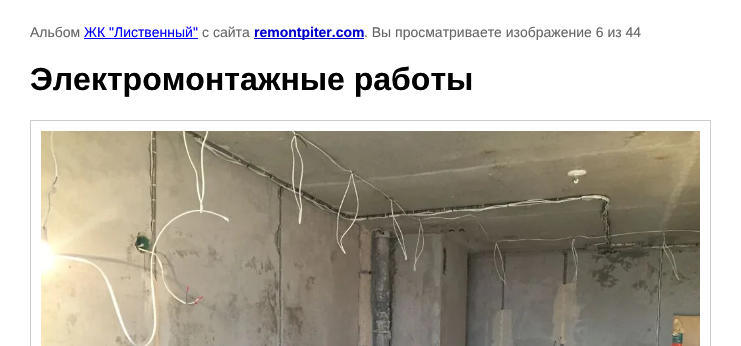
#include "include/core/SkBlurTypes.h"
#include "include/core/SkCanvas.h"
#include "include/core/SkData.h"
#include "include/core/SkFont.h"
#include "include/core/SkFontMgr.h"
#include "include/core/SkImage.h"
#include "include/core/SkMaskFilter.h"
#include "include/core/SkPaint.h"
#include "include/core/SkPathBuilder.h"
#include "include/core/SkTextBlob.h"
#include "include/effects/SkDashPathEffect.h"
#include "include/effects/SkGradientShader.h"
#include "include/utils/SkParsePath.h"

extern sk_sp<SkFontMgr> fontMgr;

static SkFont font(const char* family, int weight, float size, bool italic = false) {
    SkFontStyle style(weight, SkFontStyle::kNormal_Width,
        italic ? SkFontStyle::kItalic_Slant : SkFontStyle::kUpright_Slant);
    SkFont result(fontMgr->matchFamilyStyle(family, style), size);
    result.setSubpixel(true);
    return result;
}

static void drawLabel(SkCanvas* canvas, const char* s, float x, float y, const SkFont& font, SkColor color) {
    SkPaint ink(SkColor4f::FromColor(color));
    ink.setAntiAlias(true);
    canvas->drawString(s, x, y, font, ink);
}

static void fillRect(SkCanvas* canvas, float x, float y, float w, float h, SkColor color) {
    SkPaint ink(SkColor4f::FromColor(color));
    ink.setAntiAlias(true);
    canvas->drawRect(SkRect::MakeXYWH(x, y, w, h), ink);
}

static void drawPhoto(SkCanvas* canvas, const char* path, float x, float y, float w, float h) {
    auto image = SkImages::DeferredFromEncodedData(SkData::MakeFromFileName(path));
    canvas->drawImageRect(image, SkRect::MakeXYWH(x, y, w, h), SkSamplingOptions());
}

void draw(SkCanvas* canvas) {
    SkPaint paint;
    paint.setAntiAlias(true);
    canvas->clear(0xFFFFFFFF);
    SkFont font1 = font("Liberation Sans", 400, 14);
    drawLabel(canvas, "Альбом", 30, 37, font1, 0xFF666666);
    drawLabel(canvas, "ЖК \"Лиственный\"", 84, 37, font1, 0xFF0000FF);
    fillRect(canvas, 84, 38, 114, 1, 0xFF0000FF);
    drawLabel(canvas, "с сайта", 202, 37, font1, 0xFF666666);
    fillRect(canvas, 254, 38, 110, 1, 0xFF0000CC);
    SkFont font2 = font("Liberation Sans", 700, 14);
    drawLabel(canvas, "remontpiter.com", 254, 37, font2, 0xFF0000CC);
    drawLabel(canvas, ". Вы просматриваете изображение 6 из 44", 364, 37, font1, 0xFF666666);
    SkFont font3 = font("Liberation Sans", 700, 32);
    drawLabel(canvas, "Электромонтажные работы", 30, 90, font3, 0xFF000000);
    paint.setStroke(true);
    paint.setStrokeWidth(1);
    paint.setColor(0xFFCCCCCC);
    canvas->drawRect(SkRect::MakeXYWH(30.5f, 120.5f, 680, 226), paint);
    drawPhoto(canvas, "assets/img1.png", 41, 131, 659, 215);
}
